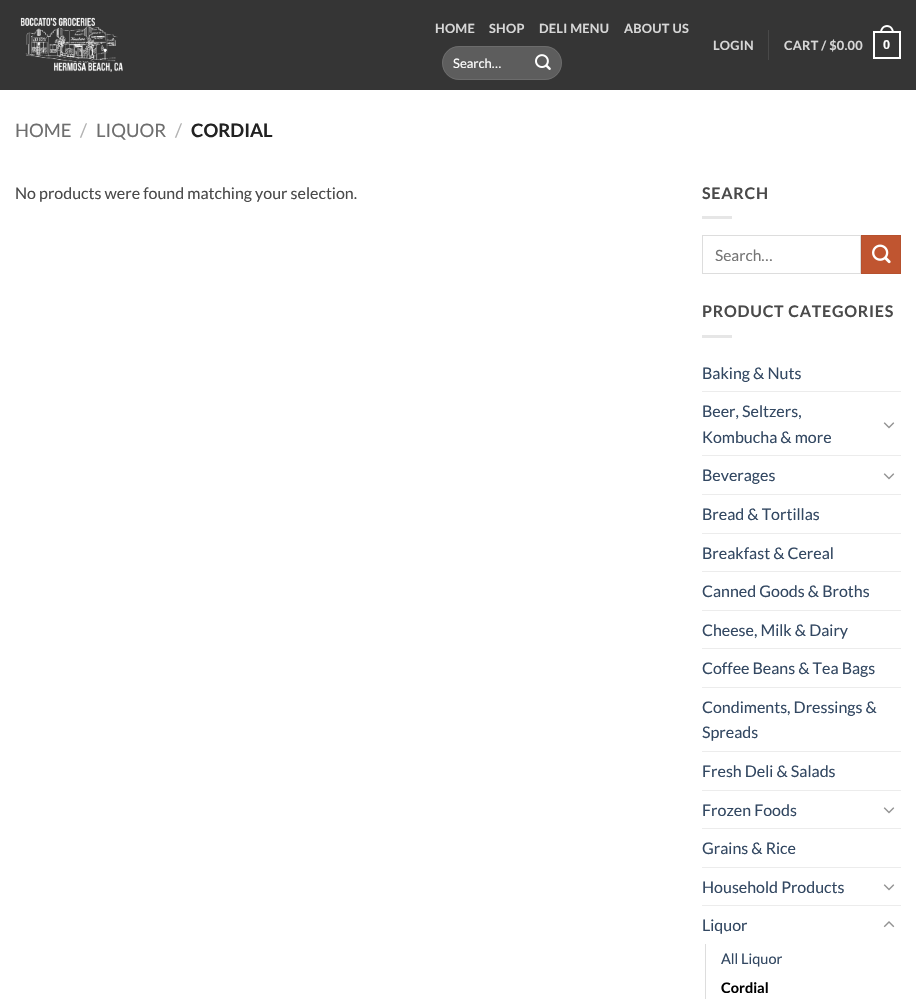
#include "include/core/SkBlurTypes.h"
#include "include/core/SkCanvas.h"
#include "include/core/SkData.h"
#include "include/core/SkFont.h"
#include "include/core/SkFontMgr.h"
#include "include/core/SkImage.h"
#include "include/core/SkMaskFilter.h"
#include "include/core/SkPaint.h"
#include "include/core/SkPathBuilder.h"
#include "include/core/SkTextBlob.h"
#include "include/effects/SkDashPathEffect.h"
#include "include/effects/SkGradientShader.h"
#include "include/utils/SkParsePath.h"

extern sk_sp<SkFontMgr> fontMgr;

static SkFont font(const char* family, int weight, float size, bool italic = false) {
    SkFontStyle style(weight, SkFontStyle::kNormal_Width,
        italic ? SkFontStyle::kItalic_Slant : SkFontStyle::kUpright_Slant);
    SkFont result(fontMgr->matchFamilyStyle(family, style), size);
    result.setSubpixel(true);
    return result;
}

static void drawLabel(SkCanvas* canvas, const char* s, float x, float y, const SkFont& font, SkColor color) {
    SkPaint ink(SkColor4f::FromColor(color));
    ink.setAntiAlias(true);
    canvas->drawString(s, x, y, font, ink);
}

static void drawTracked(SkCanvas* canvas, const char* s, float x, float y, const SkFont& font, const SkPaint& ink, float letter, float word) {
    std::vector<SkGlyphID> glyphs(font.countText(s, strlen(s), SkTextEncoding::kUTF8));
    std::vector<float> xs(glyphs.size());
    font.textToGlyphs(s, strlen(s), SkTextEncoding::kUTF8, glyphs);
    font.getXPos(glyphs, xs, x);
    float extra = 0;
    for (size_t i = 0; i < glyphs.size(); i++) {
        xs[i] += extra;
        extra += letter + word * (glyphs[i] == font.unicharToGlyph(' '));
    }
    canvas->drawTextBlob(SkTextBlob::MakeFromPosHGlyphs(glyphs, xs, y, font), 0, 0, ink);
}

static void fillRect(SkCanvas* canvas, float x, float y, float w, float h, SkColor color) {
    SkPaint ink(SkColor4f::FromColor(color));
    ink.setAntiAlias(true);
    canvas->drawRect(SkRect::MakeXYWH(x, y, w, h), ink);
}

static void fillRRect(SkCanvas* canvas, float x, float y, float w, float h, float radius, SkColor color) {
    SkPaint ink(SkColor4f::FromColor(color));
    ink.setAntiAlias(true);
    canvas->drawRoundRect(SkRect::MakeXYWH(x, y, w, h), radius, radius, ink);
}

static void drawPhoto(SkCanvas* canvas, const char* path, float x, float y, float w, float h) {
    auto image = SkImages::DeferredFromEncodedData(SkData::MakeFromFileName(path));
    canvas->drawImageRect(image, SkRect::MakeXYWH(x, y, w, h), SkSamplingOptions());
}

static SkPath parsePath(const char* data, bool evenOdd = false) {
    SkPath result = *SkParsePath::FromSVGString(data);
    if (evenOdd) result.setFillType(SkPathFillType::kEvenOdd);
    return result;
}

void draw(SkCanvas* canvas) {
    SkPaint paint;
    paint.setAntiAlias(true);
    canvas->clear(0xFFFFFFFF);
    fillRect(canvas, 0, 0, 916, 90, 0xFF353535);
    drawPhoto(canvas, "assets/img1.png", 20, 17, 103, 55);
    SkFont font1 = font("Lato", 700, 12.75f);
    paint.setColor(0xFFD7D7D7);
    drawTracked(canvas, "HOME", 435, 33, font1, paint, 0.25f, 0);
    drawTracked(canvas, "SHOP", 489, 33, font1, paint, 0.25f, 0);
    drawTracked(canvas, "DELI MENU", 539, 33, font1, paint, 0.25f, 0);
    drawTracked(canvas, "ABOUT US", 624, 33, font1, paint, 0.25f, 0);
    fillRRect(canvas, 442, 46, 120, 34, 17, 0xFF5D5D5D);
    paint.setStroke(true);
    paint.setStrokeWidth(1);
    paint.setColor(0x17FFFFFF);
    canvas->drawRoundRect(SkRect::MakeXYWH(442.5f, 46.5f, 119, 33), 16.5f, 16.5f, paint);
    SkFont font2 = font("Lato", 400, 13);
    drawLabel(canvas, "Search…", 453, 68, font2, 0xFFFFFFFF);
    drawPhoto(canvas, "assets/img2.png", 535, 54, 16, 16);
    paint.setStroke(false);
    paint.setColor(0xFFD7D7D7);
    drawTracked(canvas, "LOGIN", 713, 50, font1, paint, 0.25f, 0);
    fillRect(canvas, 768, 30, 1, 30, 0xFF494949);
    drawTracked(canvas, "CART / $0.00", 784, 50, font1, paint, 0.25f, 0);
    paint.setStroke(true);
    paint.setStrokeWidth(2);
    paint.setColor(0xFFFFFFFF);
    canvas->drawRect(SkRect::MakeXYWH(874, 32, 26, 26), paint);
    paint.setStroke(false);
    canvas->drawPath(parsePath("M887 25C891.5 25 894 29 894 33H880C880 29 882.5 25 887 25ZM887 27C890.5 27 892 30 892 33H882C882 30 883.5 27 887 27Z", true), paint);
    SkFont font3 = font("Liberation Sans", 700, 12.75f);
    drawTracked(canvas, "0", 883, 49, font3, paint, 0.25f, 0);
    SkFont font4 = font("Lato", 400, 18.5f);
    drawLabel(canvas, "HOME", 15, 137, font4, 0xFF6E6E6E);
    drawLabel(canvas, "/", 80, 137, font4, 0xFFB2B2B2);
    drawLabel(canvas, "LIQUOR", 96, 137, font4, 0xFF6E6E6E);
    drawLabel(canvas, "/", 175, 137, font4, 0xFFB2B2B2);
    SkFont font5 = font("Lato", 700, 18.5f);
    drawLabel(canvas, "CORDIAL", 191, 137, font5, 0xFF222222);
    SkFont font6 = font("Lato", 400, 16);
    drawLabel(canvas, "No products were found matching your selection.", 15, 199, font6, 0xFF4A4A4A);
    SkFont font7 = font("Lato", 700, 16);
    paint.setColor(0xFF4A4A4A);
    drawTracked(canvas, "SEARCH", 702, 199, font7, paint, 0.75f, 0);
    fillRect(canvas, 702, 216, 30, 3, 0xFFE6E6E6);
    paint.setStroke(true);
    paint.setStrokeWidth(1);
    paint.setColor(0xFFDDDDDD);
    canvas->drawRect(SkRect::MakeXYWH(702.5f, 235.5f, 158, 38), paint);
    SkFont font8 = font("Lato", 400, 15.5f);
    drawLabel(canvas, "Search…", 715, 261, font8, 0xFF757575);
    paint.setStroke(false);
    paint.setColor(0xFFC05530);
    canvas->drawRect(SkRect::MakeXYWH(861.5f, 235.5f, 39, 38), paint);
    paint.setStroke(true);
    paint.setColor(0xFFB6512E);
    canvas->drawRect(SkRect::MakeXYWH(861.5f, 235.5f, 39, 38), paint);
    drawPhoto(canvas, "assets/img3.png", 872, 244, 19, 20);
    paint.setStroke(false);
    paint.setColor(0xFF4A4A4A);
    drawTracked(canvas, "PRODUCT CATEGORIES", 702, 317, font7, paint, 0.75f, 0);
    fillRect(canvas, 702, 335, 30, 3, 0xFFE6E6E6);
    drawLabel(canvas, "Baking & Nuts", 702, 379, font6, 0xFF334862);
    fillRect(canvas, 702, 391, 199, 1, 0xFFECECEC);
    drawLabel(canvas, "Beer, Seltzers,", 702, 417, font6, 0xFF334862);
    drawLabel(canvas, "Kombucha & more", 702, 443, font6, 0xFF334862);
    drawPhoto(canvas, "assets/img4.png", 883, 422, 12, 7);
    fillRect(canvas, 702, 455, 199, 1, 0xFFECECEC);
    drawLabel(canvas, "Beverages", 702, 481, font6, 0xFF334862);
    drawPhoto(canvas, "assets/img4.png", 883, 473, 12, 7);
    fillRect(canvas, 702, 494, 199, 1, 0xFFECECEC);
    drawLabel(canvas, "Bread & Tortillas", 702, 520, font6, 0xFF334862);
    fillRect(canvas, 702, 533, 199, 1, 0xFFECECEC);
    drawLabel(canvas, "Breakfast & Cereal", 702, 559, font6, 0xFF334862);
    fillRect(canvas, 702, 571, 199, 1, 0xFFECECEC);
    drawLabel(canvas, "Canned Goods & Broths", 702, 597, font6, 0xFF334862);
    fillRect(canvas, 702, 610, 199, 1, 0xFFECECEC);
    drawLabel(canvas, "Cheese, Milk & Dairy", 702, 636, font6, 0xFF334862);
    fillRect(canvas, 702, 648, 199, 1, 0xFFECECEC);
    drawLabel(canvas, "Coffee Beans & Tea Bags", 702, 674, font6, 0xFF334862);
    fillRect(canvas, 702, 687, 199, 1, 0xFFECECEC);
    drawLabel(canvas, "Condiments, Dressings &", 702, 713, font6, 0xFF334862);
    drawLabel(canvas, "Spreads", 702, 738, font6, 0xFF334862);
    fillRect(canvas, 702, 751, 199, 1, 0xFFECECEC);
    drawLabel(canvas, "Fresh Deli & Salads", 702, 777, font6, 0xFF334862);
    fillRect(canvas, 702, 790, 199, 1, 0xFFECECEC);
    drawLabel(canvas, "Frozen Foods", 702, 816, font6, 0xFF334862);
    drawPhoto(canvas, "assets/img4.png", 883, 807, 12, 7);
    fillRect(canvas, 702, 828, 199, 1, 0xFFECECEC);
    drawLabel(canvas, "Grains & Rice", 702, 854, font6, 0xFF334862);
    fillRect(canvas, 702, 867, 199, 1, 0xFFECECEC);
    drawLabel(canvas, "Household Products", 702, 893, font6, 0xFF334862);
    drawPhoto(canvas, "assets/img4.png", 883, 884, 12, 7);
    fillRect(canvas, 702, 905, 199, 1, 0xFFECECEC);
    drawLabel(canvas, "Liquor", 702, 931, font6, 0xFF334862);
    drawPhoto(canvas, "assets/img5.png", 883, 921, 12, 7);
    fillRect(canvas, 705, 944, 1, 55, 0xFFDDDDDD);
    SkFont font9 = font("Lato", 400, 14.5f);
    drawLabel(canvas, "All Liquor", 721, 964, font9, 0xFF334862);
    SkFont font10 = font("Lato", 700, 14.5f);
    drawLabel(canvas, "Cordial", 721, 993, font10, 0xFF000000);
}
